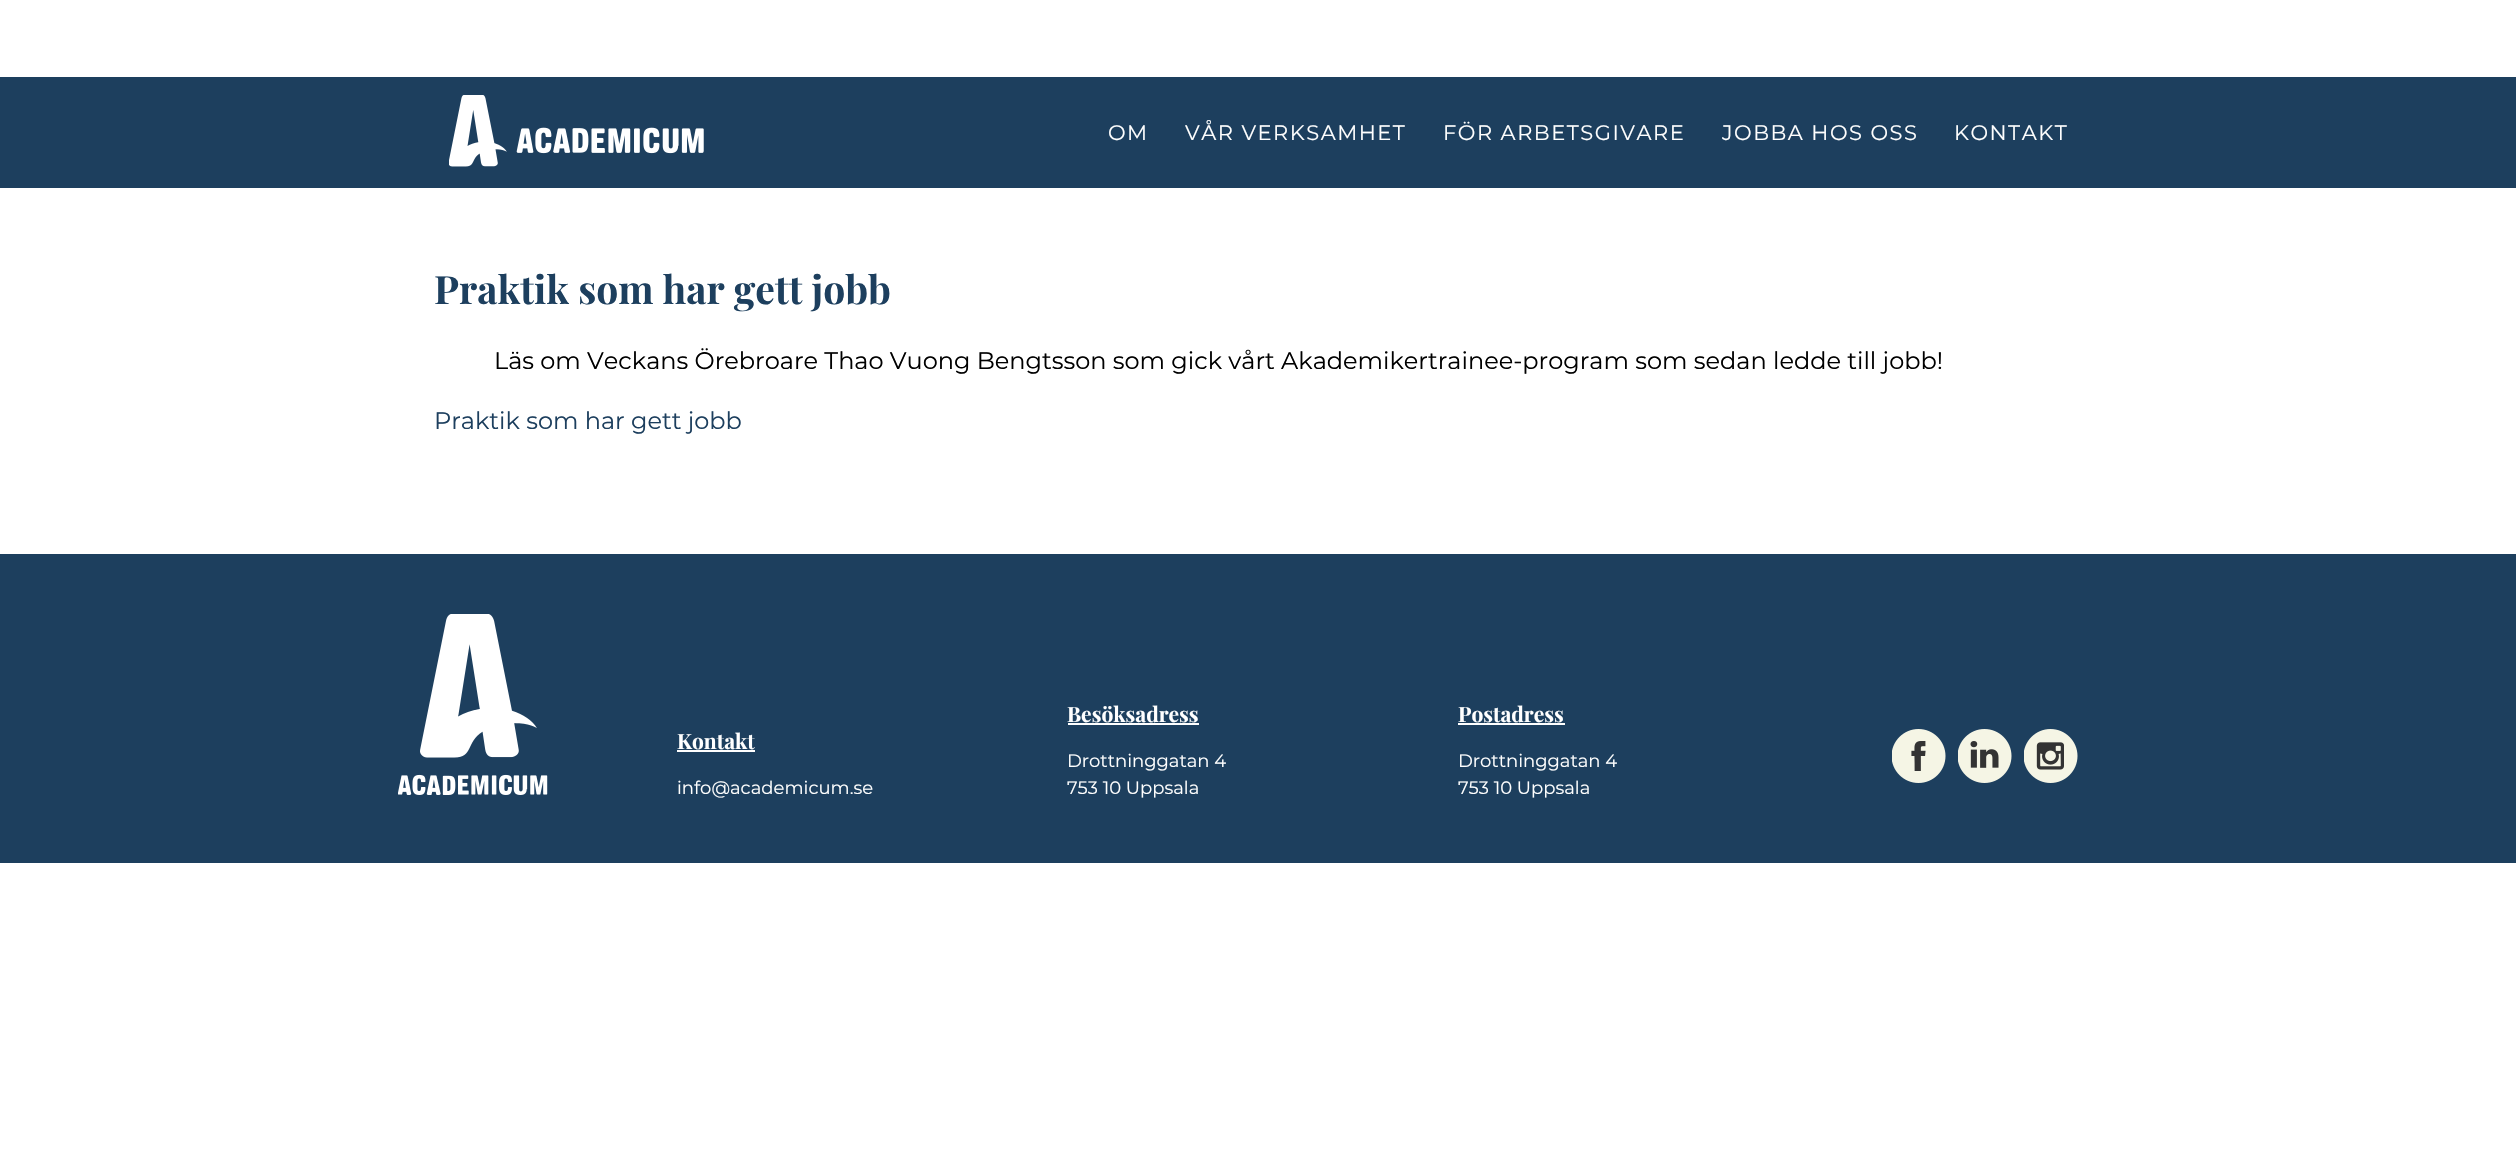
#include "include/core/SkBlurTypes.h"
#include "include/core/SkCanvas.h"
#include "include/core/SkData.h"
#include "include/core/SkFont.h"
#include "include/core/SkFontMgr.h"
#include "include/core/SkImage.h"
#include "include/core/SkMaskFilter.h"
#include "include/core/SkPaint.h"
#include "include/core/SkPathBuilder.h"
#include "include/core/SkTextBlob.h"
#include "include/effects/SkDashPathEffect.h"
#include "include/effects/SkGradientShader.h"
#include "include/utils/SkParsePath.h"

extern sk_sp<SkFontMgr> fontMgr;

static SkFont font(const char* family, int weight, float size, bool italic = false) {
    SkFontStyle style(weight, SkFontStyle::kNormal_Width,
        italic ? SkFontStyle::kItalic_Slant : SkFontStyle::kUpright_Slant);
    SkFont result(fontMgr->matchFamilyStyle(family, style), size);
    result.setSubpixel(true);
    return result;
}

static void drawLabel(SkCanvas* canvas, const char* s, float x, float y, const SkFont& font, SkColor color) {
    SkPaint ink(SkColor4f::FromColor(color));
    ink.setAntiAlias(true);
    canvas->drawString(s, x, y, font, ink);
}

static void drawTracked(SkCanvas* canvas, const char* s, float x, float y, const SkFont& font, const SkPaint& ink, float letter, float word) {
    std::vector<SkGlyphID> glyphs(font.countText(s, strlen(s), SkTextEncoding::kUTF8));
    std::vector<float> xs(glyphs.size());
    font.textToGlyphs(s, strlen(s), SkTextEncoding::kUTF8, glyphs);
    font.getXPos(glyphs, xs, x);
    float extra = 0;
    for (size_t i = 0; i < glyphs.size(); i++) {
        xs[i] += extra;
        extra += letter + word * (glyphs[i] == font.unicharToGlyph(' '));
    }
    canvas->drawTextBlob(SkTextBlob::MakeFromPosHGlyphs(glyphs, xs, y, font), 0, 0, ink);
}

static void fillRect(SkCanvas* canvas, float x, float y, float w, float h, SkColor color) {
    SkPaint ink(SkColor4f::FromColor(color));
    ink.setAntiAlias(true);
    canvas->drawRect(SkRect::MakeXYWH(x, y, w, h), ink);
}

static void drawPhoto(SkCanvas* canvas, const char* path, float x, float y, float w, float h) {
    auto image = SkImages::DeferredFromEncodedData(SkData::MakeFromFileName(path));
    canvas->drawImageRect(image, SkRect::MakeXYWH(x, y, w, h), SkSamplingOptions());
}

void draw(SkCanvas* canvas) {
    SkPaint paint;
    paint.setAntiAlias(true);
    canvas->clear(0xFFFFFFFF);
    fillRect(canvas, 0, 77, 2516, 111, 0xFF1D3F5E);
    drawPhoto(canvas, "assets/img1.png", 449, 95, 255, 72);
    SkFont font1 = font("Montserrat", 400, 21);
    paint.setColor(0xFFFFFFFF);
    drawTracked(canvas, "OM", 1108, 140, font1, paint, 1.5f, 0);
    drawTracked(canvas, "VÅR VERKSAMHET", 1185, 140, font1, paint, 1.5f, 0);
    drawTracked(canvas, "FÖR ARBETSGIVARE", 1443, 140, font1, paint, 1.5f, 0);
    drawTracked(canvas, "JOBBA HOS OSS", 1722, 140, font1, paint, 1.5f, 0);
    drawTracked(canvas, "KONTAKT", 1954, 140, font1, paint, 1.5f, 0);
    SkFont font2 = font("Playfair Display", 700, 39);
    drawLabel(canvas, "Praktik som har gett jobb", 434, 304, font2, 0xFF1D3F5E);
    SkFont font3 = font("Montserrat", 400, 24);
    drawLabel(canvas, "Läs om Veckans Örebroare Thao Vuong Bengtsson som gick vårt Akademikertrainee-program som sedan ledde till jobb!", 494, 369, font3, 0xFF000000);
    drawLabel(canvas, "Praktik som har gett jobb", 434, 429, font3, 0xFF1D3F5E);
    fillRect(canvas, 0, 554, 2516, 309, 0xFF1D3F5E);
    drawPhoto(canvas, "assets/img2.png", 398, 614, 150, 181);
    SkFont font4 = font("Playfair Display", 700, 21);
    drawLabel(canvas, "Kontakt", 677, 749, font4, 0xFFFFFFFF);
    fillRect(canvas, 677, 750, 78, 2, 0xFFFFFFFF);
    SkFont font5 = font("Montserrat", 400, 18);
    drawLabel(canvas, "info@academicum.se", 677, 794, font5, 0xFFFFFFFF);
    drawLabel(canvas, "Besöksadress", 1067, 722, font4, 0xFFFFFFFF);
    fillRect(canvas, 1068, 723, 131, 2, 0xFFFFFFFF);
    drawLabel(canvas, "Drottninggatan 4", 1067, 767, font5, 0xFFFFFFFF);
    drawLabel(canvas, "753 10 Uppsala", 1067, 794, font5, 0xFFFFFFFF);
    drawLabel(canvas, "Postadress", 1458, 722, font4, 0xFFFFFFFF);
    fillRect(canvas, 1458, 723, 107, 2, 0xFFFFFFFF);
    drawLabel(canvas, "Drottninggatan 4", 1458, 767, font5, 0xFFFFFFFF);
    drawLabel(canvas, "753 10 Uppsala", 1458, 794, font5, 0xFFFFFFFF);
    drawPhoto(canvas, "assets/img3.png", 1892, 729, 54, 54);
    drawPhoto(canvas, "assets/img4.png", 1958, 729, 54, 54);
    drawPhoto(canvas, "assets/img5.png", 2024, 729, 54, 54);
}
